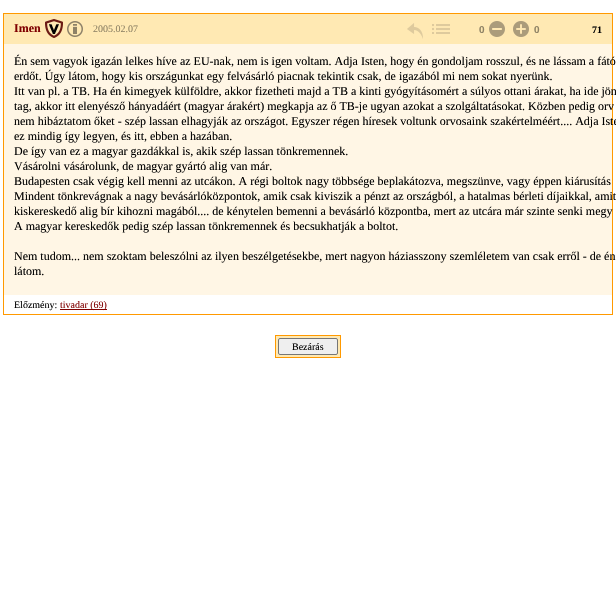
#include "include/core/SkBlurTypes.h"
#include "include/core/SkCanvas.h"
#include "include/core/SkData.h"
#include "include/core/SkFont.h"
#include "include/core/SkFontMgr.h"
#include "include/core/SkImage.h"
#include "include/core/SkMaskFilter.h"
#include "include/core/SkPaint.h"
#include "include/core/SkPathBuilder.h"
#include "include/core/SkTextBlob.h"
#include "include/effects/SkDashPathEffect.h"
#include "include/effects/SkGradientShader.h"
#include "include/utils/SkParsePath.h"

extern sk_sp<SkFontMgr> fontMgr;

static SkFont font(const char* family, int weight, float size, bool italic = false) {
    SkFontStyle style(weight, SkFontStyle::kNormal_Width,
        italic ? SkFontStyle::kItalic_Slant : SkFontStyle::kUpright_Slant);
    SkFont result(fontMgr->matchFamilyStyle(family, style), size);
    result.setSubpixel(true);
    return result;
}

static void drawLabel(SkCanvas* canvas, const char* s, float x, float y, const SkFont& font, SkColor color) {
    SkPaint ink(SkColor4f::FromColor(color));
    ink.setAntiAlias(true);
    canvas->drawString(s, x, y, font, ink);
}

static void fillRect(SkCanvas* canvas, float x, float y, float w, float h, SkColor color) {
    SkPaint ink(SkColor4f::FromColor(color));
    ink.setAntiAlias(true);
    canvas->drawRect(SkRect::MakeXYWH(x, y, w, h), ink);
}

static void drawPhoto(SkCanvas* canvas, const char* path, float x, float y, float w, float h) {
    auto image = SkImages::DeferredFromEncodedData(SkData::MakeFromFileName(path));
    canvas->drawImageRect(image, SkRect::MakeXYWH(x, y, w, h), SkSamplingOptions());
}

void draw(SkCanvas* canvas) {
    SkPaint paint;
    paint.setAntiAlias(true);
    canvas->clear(0xFFFFFFFF);
    fillRect(canvas, 3, 13, 610, 1, 0xFFFF9900);
    fillRect(canvas, 612, 13, 1, 302, 0xFFFF9900);
    fillRect(canvas, 3, 314, 610, 1, 0xFFFF9900);
    fillRect(canvas, 3, 13, 1, 302, 0xFFFF9900);
    fillRect(canvas, 4, 14, 608, 30, 0xFFFFE9B3);
    SkFont font1 = font("Liberation Serif", 700, 12);
    drawLabel(canvas, "Imen", 14, 32, font1, 0xFF800000);
    drawPhoto(canvas, "assets/img1.png", 45, 19, 18, 19);
    drawPhoto(canvas, "assets/img2.png", 67, 21, 16, 16);
    SkFont font2 = font("Liberation Serif", 400, 10);
    drawLabel(canvas, "2005.02.07", 93, 32, font2, 0xFF8F8365);
    drawPhoto(canvas, "assets/img3.png", 407, 23, 16, 16);
    drawPhoto(canvas, "assets/img4.png", 432, 24, 18, 10);
    SkFont font3 = font("Liberation Sans", 700, 10);
    drawLabel(canvas, "0", 479, 33, font3, 0xFF8F8365);
    drawPhoto(canvas, "assets/img5.png", 489, 21, 16, 16);
    drawPhoto(canvas, "assets/img6.png", 513, 21, 16, 16);
    drawLabel(canvas, "0", 534, 33, font3, 0xFF8F8365);
    SkFont font4 = font("Liberation Serif", 700, 10);
    drawLabel(canvas, "71", 592, 33, font4, 0xFF000000);
    fillRect(canvas, 4, 44, 608, 251, 0xFFFFF6E5);
    SkFont font5 = font("Liberation Serif", 400, 12);
    drawLabel(canvas, "Én sem vagyok igazán lelkes híve az EU-nak, nem is igen voltam. Adja Isten, hogy én gondoljam rosszul, és ne lássam a fátó", 14, 65, font5, 0xFF000000);
    drawLabel(canvas, "erdőt. Úgy látom, hogy kis országunkat egy felvásárló piacnak tekintik csak, de igazából mi nem sokat nyerünk.", 14, 80, font5, 0xFF000000);
    drawLabel(canvas, "Itt van pl. a TB. Ha én kimegyek külföldre, akkor fizetheti majd a TB a kinti gyógyításomért a súlyos ottani árakat, ha ide jön", 14, 95, font5, 0xFF000000);
    drawLabel(canvas, "tag, akkor itt elenyésző hányadáért (magyar árakért) megkapja az ő TB-je ugyan azokat a szolgáltatásokat. Közben pedig orv", 14, 110, font5, 0xFF000000);
    drawLabel(canvas, "nem hibáztatom őket - szép lassan elhagyják az országot. Egyszer régen híresek voltunk orvosaink szakértelméért.... Adja Iste", 14, 125, font5, 0xFF000000);
    drawLabel(canvas, "ez mindig így legyen, és itt, ebben a hazában.", 14, 140, font5, 0xFF000000);
    drawLabel(canvas, "De így van ez a magyar gazdákkal is, akik szép lassan tönkremennek.", 14, 155, font5, 0xFF000000);
    drawLabel(canvas, "Vásárolni vásárolunk, de magyar gyártó alig van már.", 14, 170, font5, 0xFF000000);
    drawLabel(canvas, "Budapesten csak végig kell menni az utcákon. A régi boltok nagy többsége beplakátozva, megszünve, vagy éppen kiárusítás", 14, 185, font5, 0xFF000000);
    drawLabel(canvas, "Mindent tönkrevágnak a nagy bevásárlóközpontok, amik csak kiviszik a pénzt az országból, a hatalmas bérleti díjaikkal, amit", 14, 200, font5, 0xFF000000);
    drawLabel(canvas, "kiskereskedő alig bír kihozni magából.... de kénytelen bemenni a bevásárló központba, mert az utcára már szinte senki megy", 14, 215, font5, 0xFF000000);
    drawLabel(canvas, "A magyar kereskedők pedig szép lassan tönkremennek és becsukhatják a boltot.", 14, 230, font5, 0xFF000000);
    drawLabel(canvas, "Nem tudom... nem szoktam beleszólni az ilyen beszélgetésekbe, mert nagyon háziasszony szemléletem van csak erről - de én", 14, 260, font5, 0xFF000000);
    drawLabel(canvas, "látom.", 14, 275, font5, 0xFF000000);
    drawLabel(canvas, "Előzmény:", 14, 308, font2, 0xFF000000);
    fillRect(canvas, 60, 309, 47, 1, 0xFF800000);
    drawLabel(canvas, "tivadar (69)", 60, 308, font2, 0xFF800000);
    paint.setColor(0xFFFFE9B3);
    canvas->drawRect(SkRect::MakeXYWH(275.5f, 335.5f, 65, 22), paint);
    paint.setStroke(true);
    paint.setStrokeWidth(1);
    paint.setColor(0xFFFF9900);
    canvas->drawRect(SkRect::MakeXYWH(275.5f, 335.5f, 65, 22), paint);
    paint.setStroke(false);
    paint.setColor(0xFFEFEFEF);
    canvas->drawRoundRect(SkRect::MakeXYWH(278.5f, 338.5f, 59, 16), 1.5f, 1.5f, paint);
    paint.setStroke(true);
    paint.setColor(0xFF767676);
    canvas->drawRoundRect(SkRect::MakeXYWH(278.5f, 338.5f, 59, 16), 1.5f, 1.5f, paint);
    drawLabel(canvas, "Bezárás", 292, 350, font2, 0xFF000000);
}
